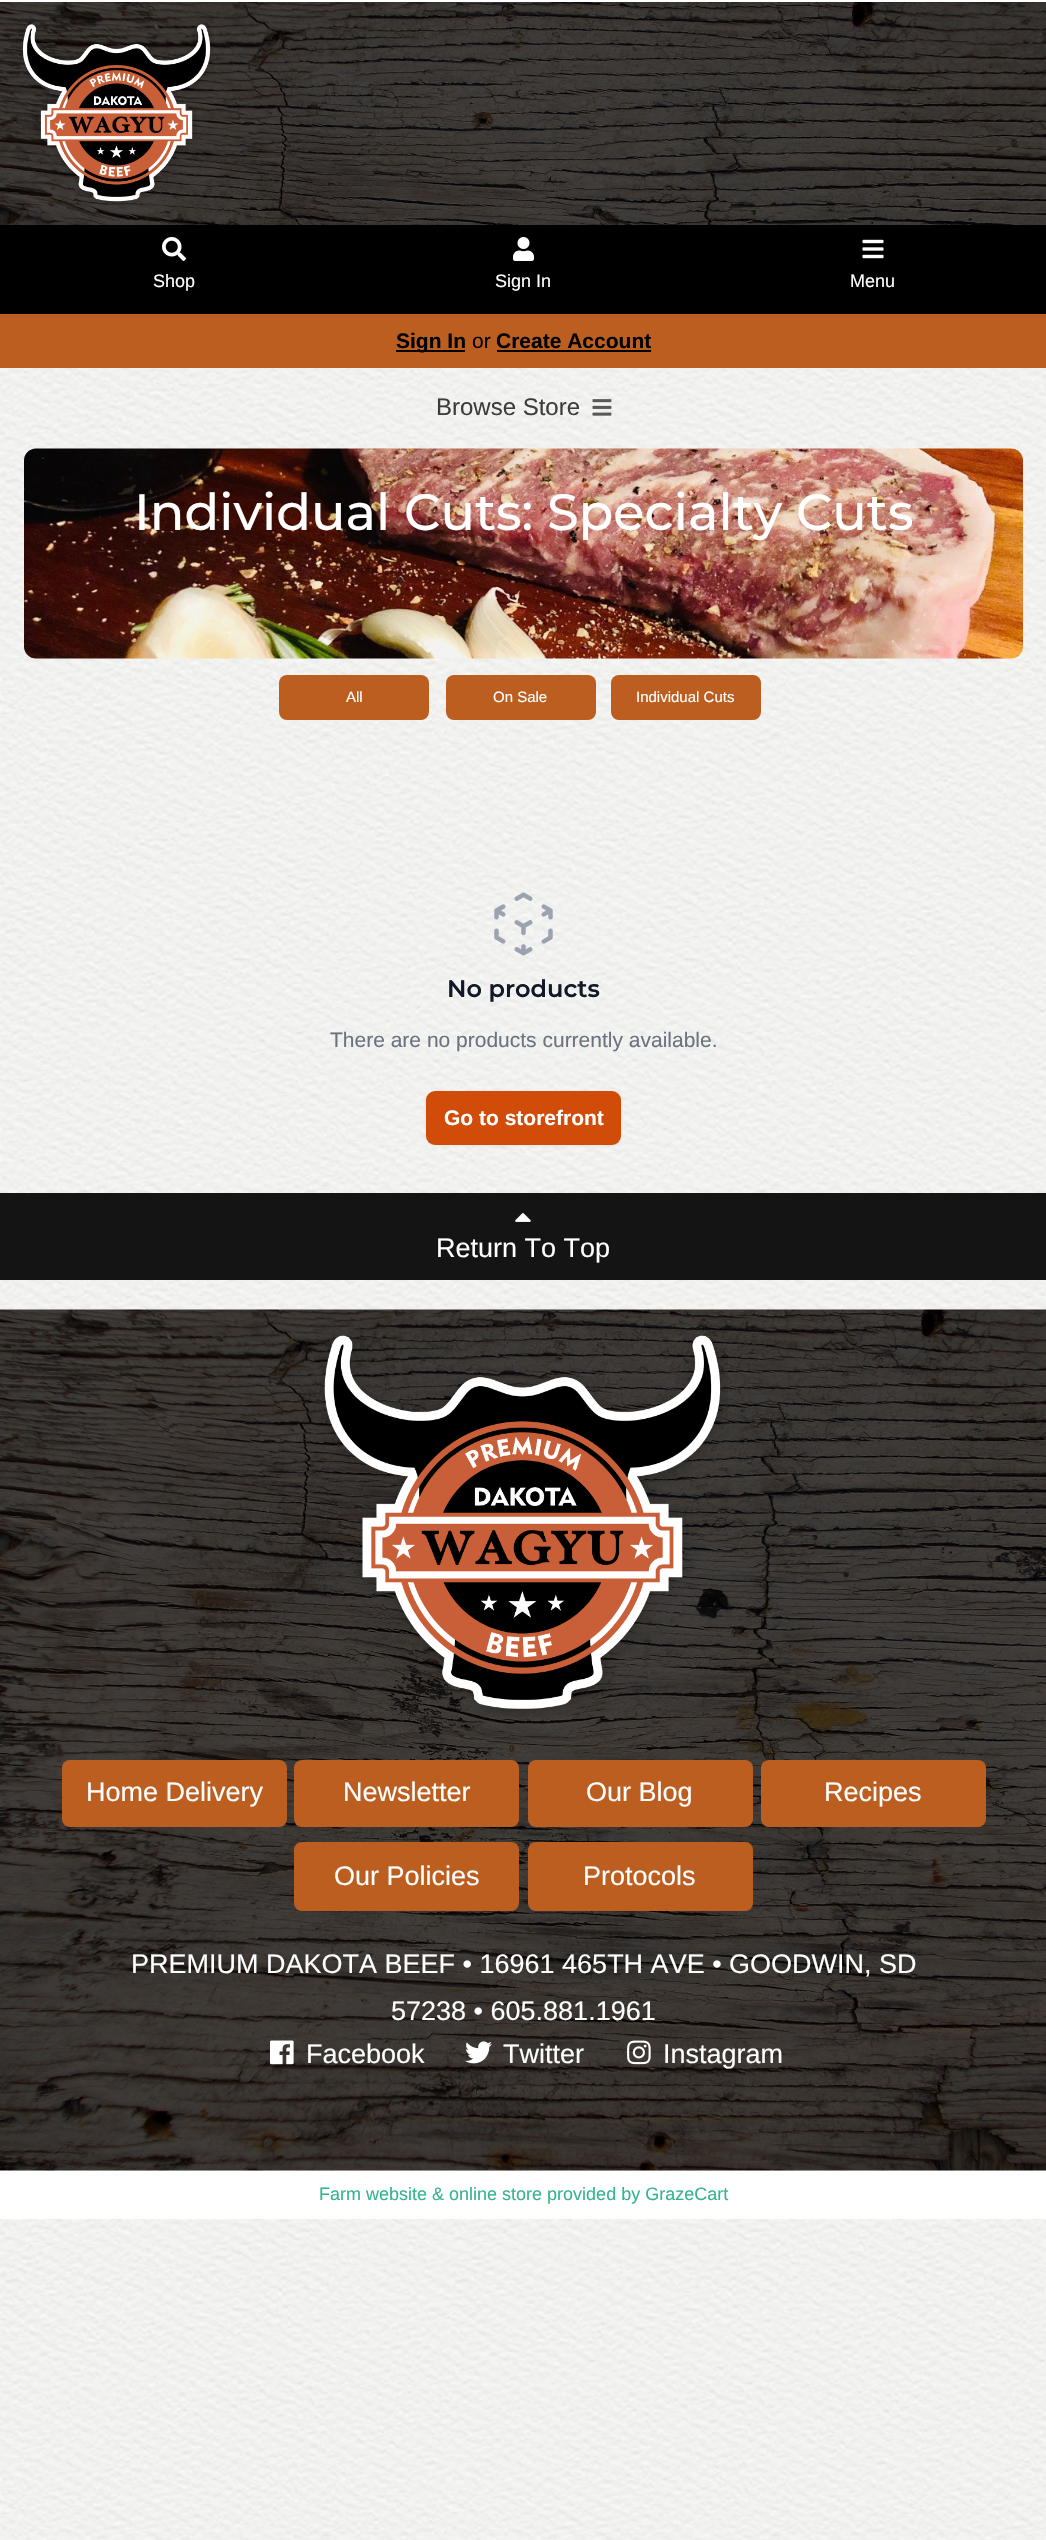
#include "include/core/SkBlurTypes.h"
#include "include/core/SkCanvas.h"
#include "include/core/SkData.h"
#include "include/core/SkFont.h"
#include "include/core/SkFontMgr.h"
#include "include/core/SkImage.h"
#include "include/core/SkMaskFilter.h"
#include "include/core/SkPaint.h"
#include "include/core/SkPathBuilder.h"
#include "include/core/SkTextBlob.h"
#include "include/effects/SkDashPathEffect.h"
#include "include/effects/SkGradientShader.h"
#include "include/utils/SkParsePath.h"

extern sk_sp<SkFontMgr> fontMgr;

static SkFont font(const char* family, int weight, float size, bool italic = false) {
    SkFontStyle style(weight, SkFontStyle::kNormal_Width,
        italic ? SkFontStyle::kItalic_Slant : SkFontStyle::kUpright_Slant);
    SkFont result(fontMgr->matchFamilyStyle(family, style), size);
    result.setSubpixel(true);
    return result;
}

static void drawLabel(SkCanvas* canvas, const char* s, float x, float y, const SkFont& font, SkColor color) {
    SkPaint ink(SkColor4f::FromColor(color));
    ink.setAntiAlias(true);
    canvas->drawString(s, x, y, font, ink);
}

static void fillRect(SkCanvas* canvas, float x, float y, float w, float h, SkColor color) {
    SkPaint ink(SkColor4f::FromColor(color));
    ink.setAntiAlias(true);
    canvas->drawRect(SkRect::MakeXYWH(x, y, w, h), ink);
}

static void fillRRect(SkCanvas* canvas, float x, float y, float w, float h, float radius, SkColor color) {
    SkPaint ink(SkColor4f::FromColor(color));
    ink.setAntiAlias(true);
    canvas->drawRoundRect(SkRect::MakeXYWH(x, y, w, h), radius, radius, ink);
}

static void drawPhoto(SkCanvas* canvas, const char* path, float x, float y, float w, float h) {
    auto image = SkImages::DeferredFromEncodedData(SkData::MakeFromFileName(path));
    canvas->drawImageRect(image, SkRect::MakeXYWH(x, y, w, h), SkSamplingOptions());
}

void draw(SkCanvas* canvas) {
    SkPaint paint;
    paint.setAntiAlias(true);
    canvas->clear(0xFFFFFFFF);
    drawPhoto(canvas, "assets/img1.png", 0, 368, 1046, 2172);
    drawPhoto(canvas, "assets/img2.png", 0, 2, 1046, 223);
    drawPhoto(canvas, "assets/img3.png", 20, 24, 194, 181);
    fillRect(canvas, 0, 225, 1046, 89, 0xFF000000);
    drawPhoto(canvas, "assets/img4.png", 162, 237, 24, 24);
    SkFont font1 = font("Liberation Sans", 400, 18);
    drawLabel(canvas, "Shop", 153, 287, font1, 0xFFFFFFFF);
    drawPhoto(canvas, "assets/img5.png", 513, 237, 21, 24);
    drawLabel(canvas, "Sign In", 495, 287, font1, 0xFFFFFFFF);
    drawPhoto(canvas, "assets/img6.png", 862, 239, 22, 20);
    drawLabel(canvas, "Menu", 850, 287, font1, 0xFFFFFFFF);
    fillRect(canvas, 0, 314, 1046, 54, 0xFFBD5E21);
    fillRect(canvas, 396, 350, 69, 2, 0xFF000000);
    SkFont font2 = font("Liberation Sans", 700, 21);
    drawLabel(canvas, "Sign In", 396, 348, font2, 0xFF000000);
    SkFont font3 = font("Liberation Sans", 400, 21);
    drawLabel(canvas, "or", 472, 348, font3, 0xFF000000);
    drawLabel(canvas, "Create Account", 496, 348, font2, 0xFF000000);
    fillRect(canvas, 497, 350, 154, 2, 0xFF000000);
    SkFont font4 = font("Liberation Sans", 400, 24);
    drawLabel(canvas, "Browse Store", 436, 415, font4, 0xFF3D3D3D);
    drawPhoto(canvas, "assets/img7.png", 592, 399, 20, 17);
    drawPhoto(canvas, "assets/img8.png", 24, 448, 1000, 211);
    SkFont font5 = font("Montserrat", 500, 51);
    drawLabel(canvas, "Individual Cuts: Specialty Cuts", 134, 530, font5, 0xFFFFFFFF);
    fillRRect(canvas, 279, 675, 150, 45, 8, 0xFFBD5E21);
    SkFont font6 = font("Liberation Sans", 400, 15);
    drawLabel(canvas, "All", 346, 702, font6, 0xFFFFFFFF);
    fillRRect(canvas, 446, 675, 150, 45, 8, 0xFFBD5E21);
    drawLabel(canvas, "On Sale", 493, 702, font6, 0xFFFFFFFF);
    fillRRect(canvas, 611, 675, 150, 45, 8, 0xFFBD5E21);
    drawLabel(canvas, "Individual Cuts", 636, 702, font6, 0xFFFFFFFF);
    drawPhoto(canvas, "assets/img9.png", 494, 892, 59, 64);
    SkFont font7 = font("Montserrat", 600, 24);
    drawLabel(canvas, "No products", 447, 997, font7, 0xFF111827);
    drawLabel(canvas, "There are no products currently available.", 330, 1047, font3, 0xFF6B7280);
    paint.setColor(0x0D000000);
    paint.setMaskFilter(SkMaskFilter::MakeBlur(kNormal_SkBlurStyle, 1.5f));
    canvas->drawRoundRect(SkRect::MakeXYWH(426, 1092, 195, 54), 9, 9, paint);
    paint.setMaskFilter(nullptr);
    fillRRect(canvas, 426, 1091, 195, 54, 9, 0xFFD04C08);
    drawLabel(canvas, "Go to storefront", 444, 1125, font2, 0xFFFFFFFF);
    fillRect(canvas, 0, 1193, 1046, 87, 0xFF141414);
    drawPhoto(canvas, "assets/img10.png", 515, 1213, 16, 9);
    SkFont font8 = font("Liberation Sans", 400, 27);
    drawLabel(canvas, "Return To Top", 436, 1257, font8, 0xFFFFFFFF);
    drawPhoto(canvas, "assets/img11.png", 0, 1309, 1046, 862);
    drawPhoto(canvas, "assets/img12.png", 319, 1333, 409, 384);
    fillRRect(canvas, 62, 1760, 225, 67, 8, 0xFFBD5E21);
    drawLabel(canvas, "Home Delivery", 86, 1801, font8, 0xFFFFFFFF);
    fillRRect(canvas, 294, 1760, 225, 67, 8, 0xFFBD5E21);
    drawLabel(canvas, "Newsletter", 343, 1801, font8, 0xFFFFFFFF);
    fillRRect(canvas, 528, 1760, 225, 67, 8, 0xFFBD5E21);
    drawLabel(canvas, "Our Blog", 586, 1801, font8, 0xFFFFFFFF);
    fillRRect(canvas, 761, 1760, 225, 67, 8, 0xFFBD5E21);
    drawLabel(canvas, "Recipes", 824, 1801, font8, 0xFFFFFFFF);
    fillRRect(canvas, 294, 1842, 225, 69, 8, 0xFFBD5E21);
    drawLabel(canvas, "Our Policies", 334, 1885, font8, 0xFFFFFFFF);
    fillRRect(canvas, 528, 1842, 225, 69, 8, 0xFFBD5E21);
    drawLabel(canvas, "Protocols", 583, 1885, font8, 0xFFFFFFFF);
    drawLabel(canvas, "PREMIUM DAKOTA BEEF • 16961 465TH AVE • GOODWIN, SD", 131, 1973, font8, 0xFFFFFFFF);
    drawLabel(canvas, "57238 • 605.881.1961", 391, 2020, font8, 0xFFFFFFFF);
    drawPhoto(canvas, "assets/img13.png", 270, 2040, 24, 25);
    drawLabel(canvas, "Facebook", 306, 2063, font8, 0xFFFFFFFF);
    drawPhoto(canvas, "assets/img14.png", 465, 2041, 27, 23);
    drawLabel(canvas, "Twitter", 503, 2063, font8, 0xFFFFFFFF);
    drawPhoto(canvas, "assets/img15.png", 627, 2040, 24, 25);
    drawLabel(canvas, "Instagram", 663, 2063, font8, 0xFFFFFFFF);
    fillRect(canvas, 0, 2171, 1046, 48, 0xFFFFFFFF);
    drawLabel(canvas, "Farm website & online store provided by GrazeCart", 319, 2200, font1, 0xFF34B393);
}
